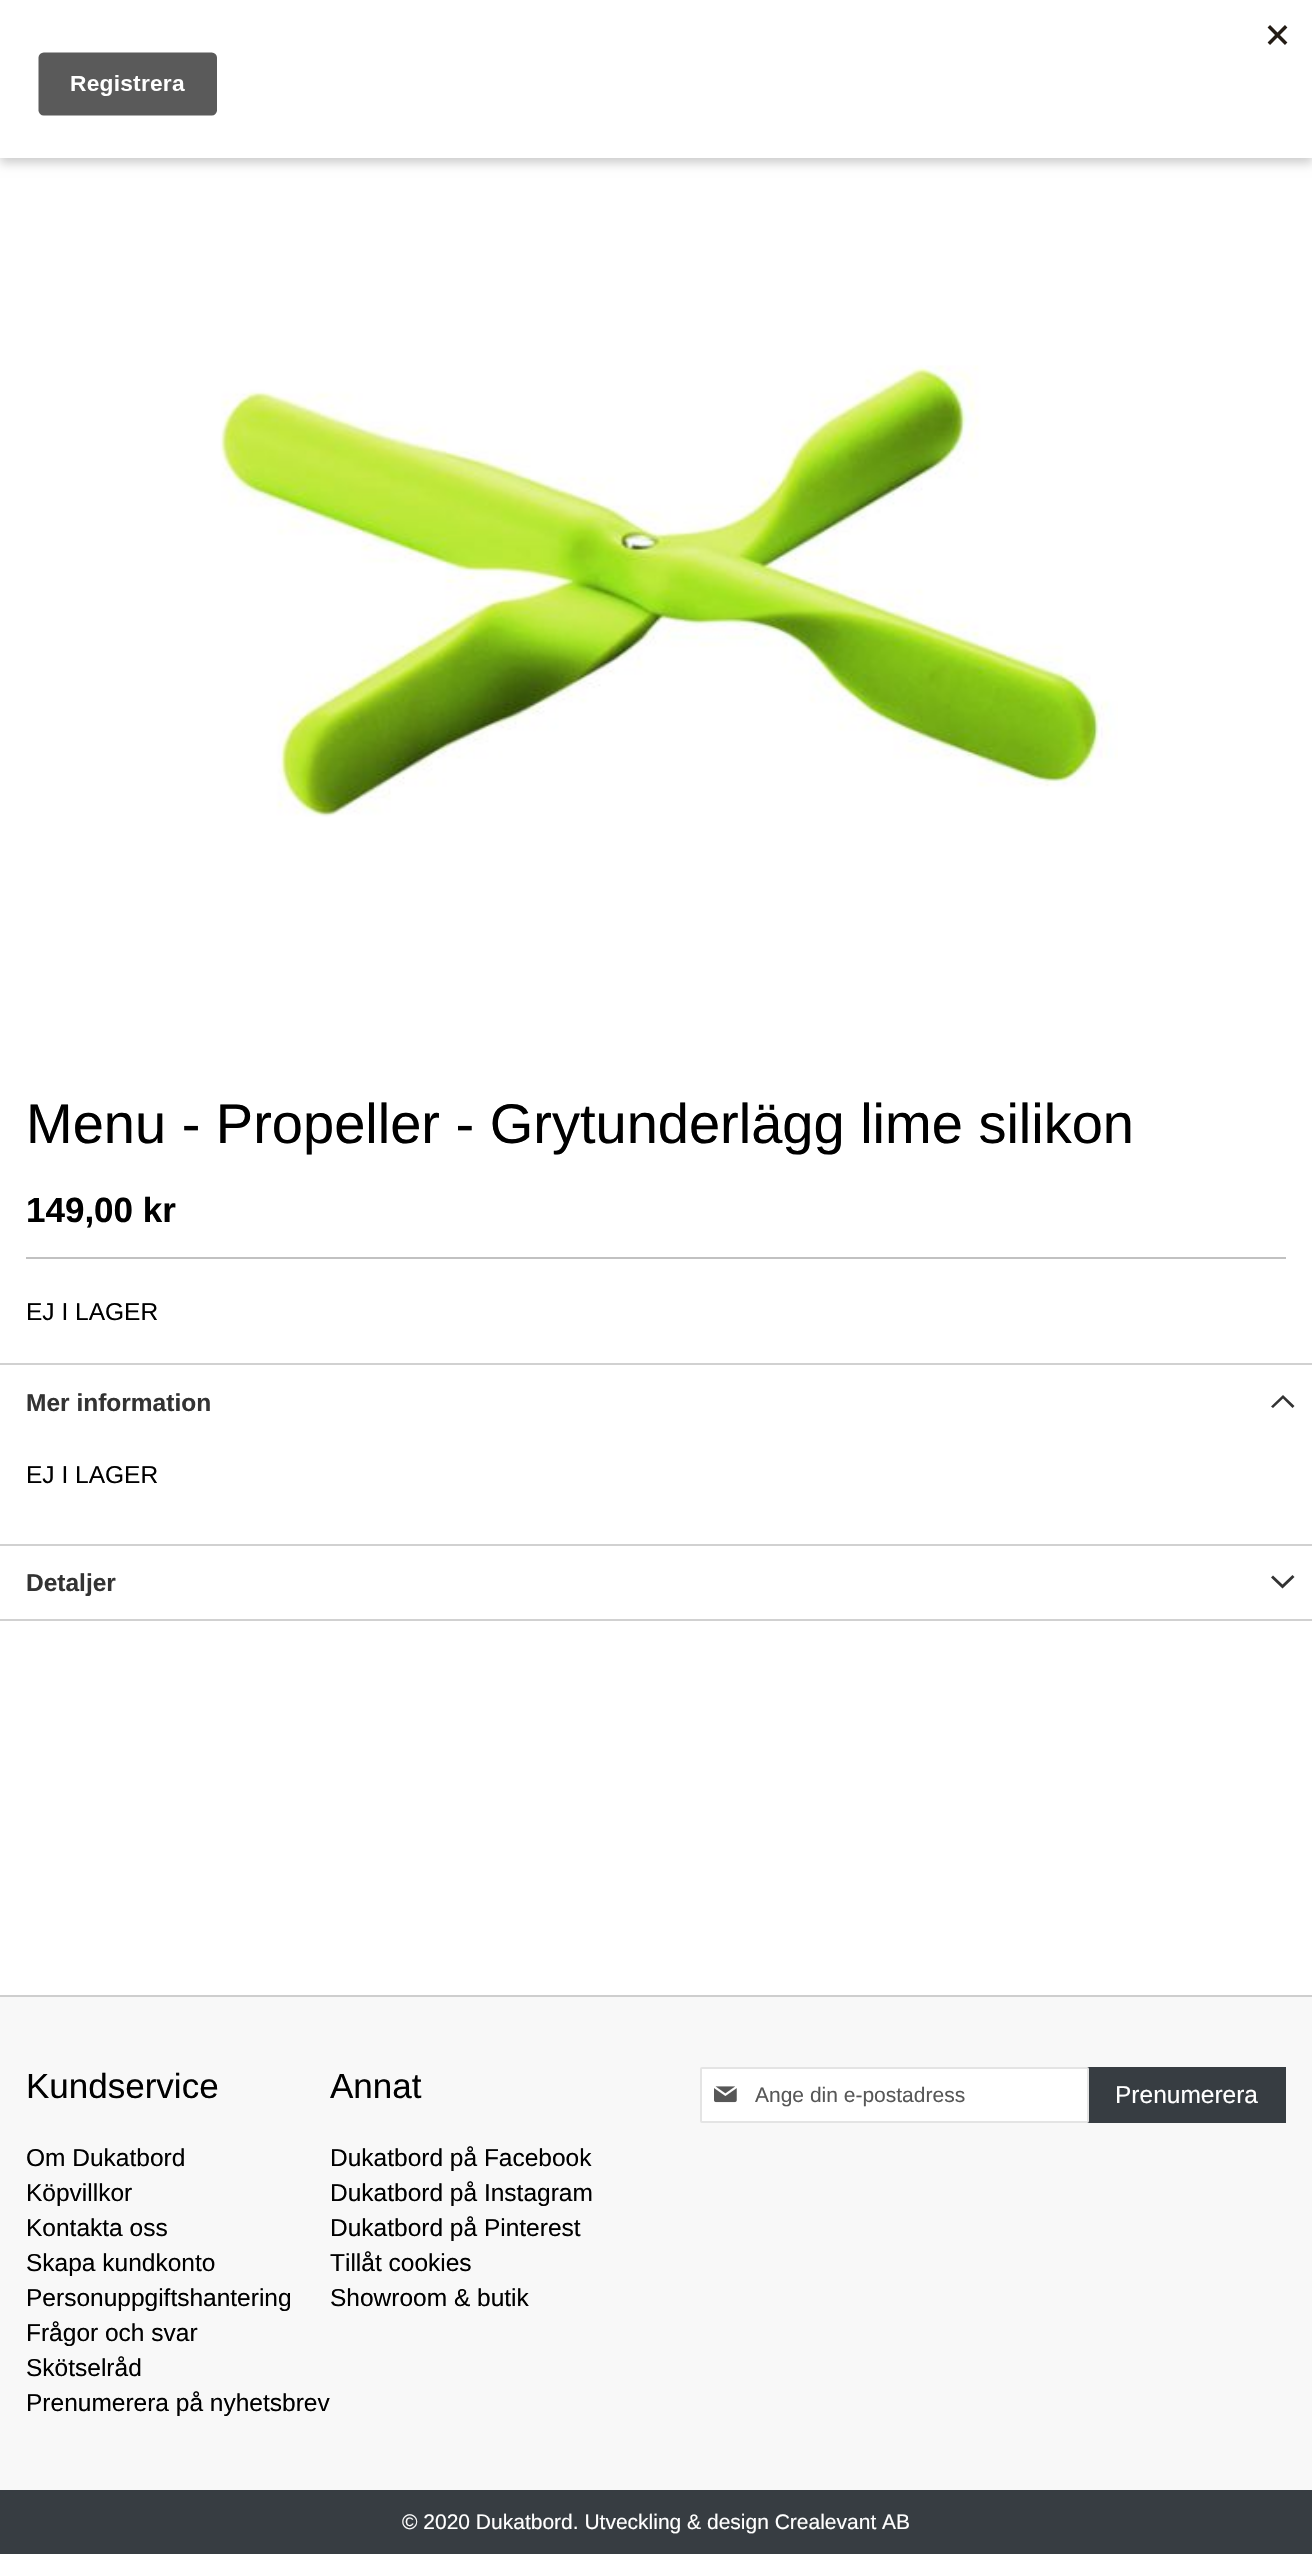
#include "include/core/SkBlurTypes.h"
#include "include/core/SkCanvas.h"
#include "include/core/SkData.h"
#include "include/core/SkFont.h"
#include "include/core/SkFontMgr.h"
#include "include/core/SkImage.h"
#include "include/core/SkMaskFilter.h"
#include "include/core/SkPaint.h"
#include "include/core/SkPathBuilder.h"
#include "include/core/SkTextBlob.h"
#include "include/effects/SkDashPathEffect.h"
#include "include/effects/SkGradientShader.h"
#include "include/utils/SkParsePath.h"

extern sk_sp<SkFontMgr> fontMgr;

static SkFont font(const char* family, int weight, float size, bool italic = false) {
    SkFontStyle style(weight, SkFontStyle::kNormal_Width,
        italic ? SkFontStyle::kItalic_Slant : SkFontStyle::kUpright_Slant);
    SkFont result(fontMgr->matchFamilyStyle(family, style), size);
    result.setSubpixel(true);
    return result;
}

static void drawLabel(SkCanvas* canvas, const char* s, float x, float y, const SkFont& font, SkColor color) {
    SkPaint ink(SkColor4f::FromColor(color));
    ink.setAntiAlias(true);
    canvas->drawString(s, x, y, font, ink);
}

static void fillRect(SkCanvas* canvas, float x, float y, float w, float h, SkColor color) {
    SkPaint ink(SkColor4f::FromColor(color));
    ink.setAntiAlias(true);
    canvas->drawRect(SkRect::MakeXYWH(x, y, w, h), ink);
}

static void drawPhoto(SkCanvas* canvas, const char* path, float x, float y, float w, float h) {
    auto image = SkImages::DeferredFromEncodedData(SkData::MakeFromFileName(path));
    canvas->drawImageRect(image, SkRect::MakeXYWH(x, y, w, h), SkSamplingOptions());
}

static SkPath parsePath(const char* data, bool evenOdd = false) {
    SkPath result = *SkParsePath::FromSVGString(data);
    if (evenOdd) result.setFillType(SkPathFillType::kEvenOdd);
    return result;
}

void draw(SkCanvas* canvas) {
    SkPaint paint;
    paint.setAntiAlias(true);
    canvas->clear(0xFFFFFFFF);
    paint.setColor(0x33000000);
    paint.setMaskFilter(SkMaskFilter::MakeBlur(kNormal_SkBlurStyle, 5));
    canvas->drawRect(SkRect::MakeXYWH(0, 5, 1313, 158), paint);
    paint.setMaskFilter(nullptr);
    fillRect(canvas, 0, 0, 1312, 158, 0xFFFFFFFF);
    drawPhoto(canvas, "assets/img1.png", 38, 25, 1250, 91);
    drawPhoto(canvas, "assets/img2.png", 220, 365, 898, 452);
    SkFont font1 = font("Liberation Sans", 400, 56);
    drawLabel(canvas, "Menu - Propeller - Grytunderlägg lime silikon", 26, 1143, font1, 0xFF000000);
    fillRect(canvas, 26, 1257, 1260, 2, 0xFFC1C1C1);
    SkFont font2 = font("Liberation Sans", 700, 35);
    drawLabel(canvas, "149,00 kr", 26, 1222, font2, 0xFF000000);
    SkFont font3 = font("Liberation Sans", 400, 24.5f);
    drawLabel(canvas, "EJ I LAGER", 26, 1320, font3, 0xFF000000);
    fillRect(canvas, 0, 1619, 1312, 2, 0xFFD1D1D1);
    fillRect(canvas, 0, 1363, 1312, 2, 0xFFD1D1D1);
    SkFont font4 = font("Liberation Sans", 700, 24.5f);
    drawLabel(canvas, "Mer information", 26, 1411, font4, 0xFF333333);
    paint.setColor(0xFF333333);
    canvas->drawPath(parsePath("M1283 1398.5L1292.5 1408L1294.5 1406L1283 1395L1271 1406.5L1273 1408Z"), paint);
    drawLabel(canvas, "EJ I LAGER", 26, 1483, font3, 0xFF000000);
    fillRect(canvas, 0, 1544, 1312, 2, 0xFFD1D1D1);
    drawLabel(canvas, "Detaljer", 26, 1591, font4, 0xFF333333);
    canvas->drawPath(parsePath("M1282.5 1584.5L1273 1575.5L1271 1577.5L1282.5 1588.5L1294.5 1577L1292.5 1575Z"), paint);
    fillRect(canvas, 0, 1997, 1312, 493, 0xFFF8F8F8);
    fillRect(canvas, 0, 1995, 1312, 2, 0xFFCECECE);
    SkFont font5 = font("Liberation Sans", 400, 35);
    drawLabel(canvas, "Kundservice", 26, 2098, font5, 0xFF000000);
    drawLabel(canvas, "Om Dukatbord", 26, 2166, font3, 0xFF000000);
    drawLabel(canvas, "Köpvillkor", 26, 2201, font3, 0xFF000000);
    drawLabel(canvas, "Kontakta oss", 26, 2236, font3, 0xFF000000);
    drawLabel(canvas, "Skapa kundkonto", 26, 2271, font3, 0xFF000000);
    drawLabel(canvas, "Personuppgiftshantering", 26, 2306, font3, 0xFF000000);
    drawLabel(canvas, "Frågor och svar", 26, 2341, font3, 0xFF000000);
    drawLabel(canvas, "Skötselråd", 26, 2376, font3, 0xFF000000);
    drawLabel(canvas, "Prenumerera på nyhetsbrev", 26, 2411, font3, 0xFF000000);
    drawLabel(canvas, "Annat", 330, 2098, font5, 0xFF000000);
    drawLabel(canvas, "Dukatbord på Facebook", 330, 2166, font3, 0xFF000000);
    drawLabel(canvas, "Dukatbord på Instagram", 330, 2201, font3, 0xFF000000);
    drawLabel(canvas, "Dukatbord på Pinterest", 330, 2236, font3, 0xFF000000);
    drawLabel(canvas, "Tillåt cookies", 330, 2271, font3, 0xFF000000);
    drawLabel(canvas, "Showroom & butik", 330, 2306, font3, 0xFF000000);
    fillRect(canvas, 1087, 2067, 199, 56, 0xFF373D42);
    paint.setColor(0xFFFFFFFF);
    canvas->drawRoundRect(SkRect::MakeXYWH(701, 2068, 387, 54), 1, 1, paint);
    paint.setStroke(true);
    paint.setStrokeWidth(2);
    paint.setColor(0xFFE4E4E4);
    canvas->drawRoundRect(SkRect::MakeXYWH(701, 2068, 387, 54), 1, 1, paint);
    drawPhoto(canvas, "assets/img3.png", 714, 2086, 23, 17);
    SkFont font6 = font("Liberation Sans", 400, 21);
    drawLabel(canvas, "Ange din e-postadress", 755, 2102, font6, 0xFF575757);
    drawLabel(canvas, "Prenumerera", 1115, 2103, font3, 0xFFFFFFFF);
    fillRect(canvas, 0, 2490, 1312, 64, 0xFF373D42);
    drawLabel(canvas, "© 2020 Dukatbord. Utveckling & design Crealevant AB", 402, 2529, font6, 0xFFFFFFFF);
}
